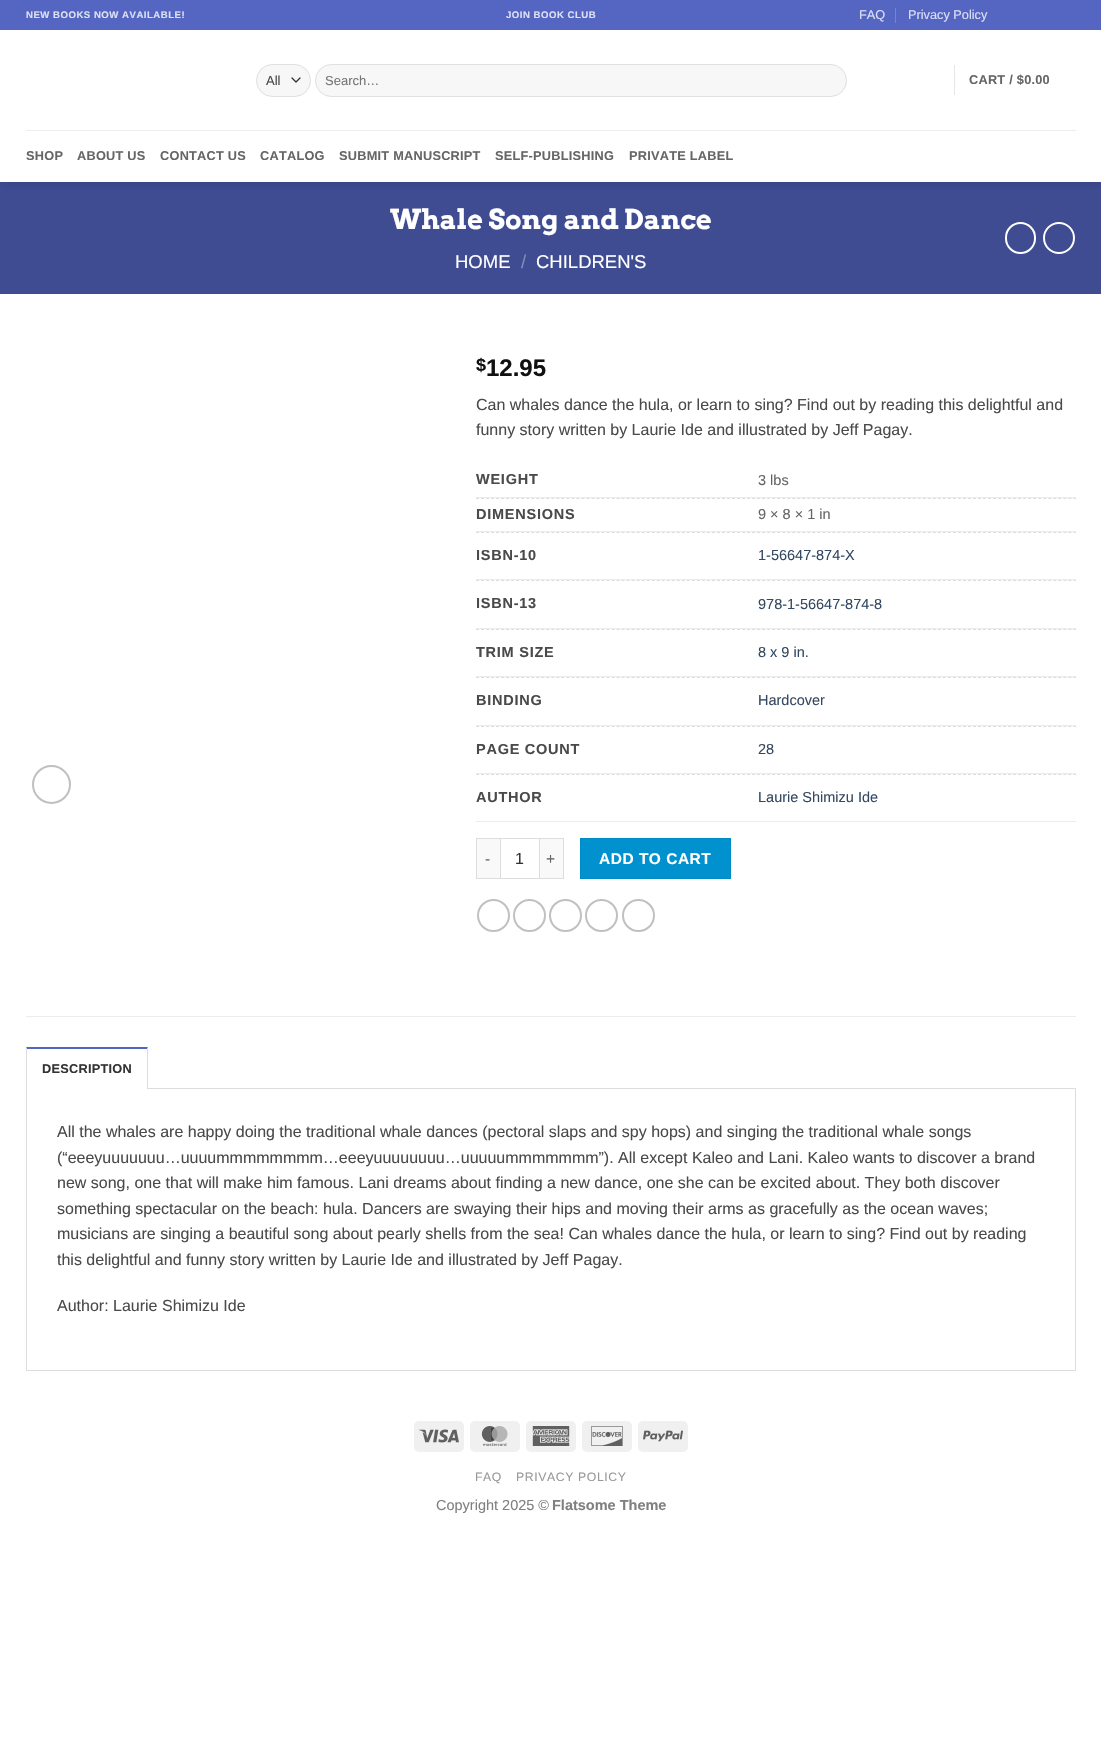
#include "include/core/SkBlurTypes.h"
#include "include/core/SkCanvas.h"
#include "include/core/SkData.h"
#include "include/core/SkFont.h"
#include "include/core/SkFontMgr.h"
#include "include/core/SkImage.h"
#include "include/core/SkMaskFilter.h"
#include "include/core/SkPaint.h"
#include "include/core/SkPathBuilder.h"
#include "include/core/SkTextBlob.h"
#include "include/effects/SkDashPathEffect.h"
#include "include/effects/SkGradientShader.h"
#include "include/utils/SkParsePath.h"

extern sk_sp<SkFontMgr> fontMgr;

static SkFont font(const char* family, int weight, float size, bool italic = false) {
    SkFontStyle style(weight, SkFontStyle::kNormal_Width,
        italic ? SkFontStyle::kItalic_Slant : SkFontStyle::kUpright_Slant);
    SkFont result(fontMgr->matchFamilyStyle(family, style), size);
    result.setSubpixel(true);
    return result;
}

static void drawLabel(SkCanvas* canvas, const char* s, float x, float y, const SkFont& font, SkColor color) {
    SkPaint ink(SkColor4f::FromColor(color));
    ink.setAntiAlias(true);
    canvas->drawString(s, x, y, font, ink);
}

static void drawTracked(SkCanvas* canvas, const char* s, float x, float y, const SkFont& font, const SkPaint& ink, float letter, float word) {
    std::vector<SkGlyphID> glyphs(font.countText(s, strlen(s), SkTextEncoding::kUTF8));
    std::vector<float> xs(glyphs.size());
    font.textToGlyphs(s, strlen(s), SkTextEncoding::kUTF8, glyphs);
    font.getXPos(glyphs, xs, x);
    float extra = 0;
    for (size_t i = 0; i < glyphs.size(); i++) {
        xs[i] += extra;
        extra += letter + word * (glyphs[i] == font.unicharToGlyph(' '));
    }
    canvas->drawTextBlob(SkTextBlob::MakeFromPosHGlyphs(glyphs, xs, y, font), 0, 0, ink);
}

static void fillRect(SkCanvas* canvas, float x, float y, float w, float h, SkColor color) {
    SkPaint ink(SkColor4f::FromColor(color));
    ink.setAntiAlias(true);
    canvas->drawRect(SkRect::MakeXYWH(x, y, w, h), ink);
}

static void fillRRect(SkCanvas* canvas, float x, float y, float w, float h, float radius, SkColor color) {
    SkPaint ink(SkColor4f::FromColor(color));
    ink.setAntiAlias(true);
    canvas->drawRoundRect(SkRect::MakeXYWH(x, y, w, h), radius, radius, ink);
}

static void drawPhoto(SkCanvas* canvas, const char* path, float x, float y, float w, float h) {
    auto image = SkImages::DeferredFromEncodedData(SkData::MakeFromFileName(path));
    canvas->drawImageRect(image, SkRect::MakeXYWH(x, y, w, h), SkSamplingOptions());
}

static SkPath parsePath(const char* data, bool evenOdd = false) {
    SkPath result = *SkParsePath::FromSVGString(data);
    if (evenOdd) result.setFillType(SkPathFillType::kEvenOdd);
    return result;
}

void draw(SkCanvas* canvas) {
    SkPaint paint;
    paint.setAntiAlias(true);
    canvas->clear(0xFFFFFFFF);
    fillRect(canvas, 0, 182, 1101, 112, 0xFF3F4C92);
    canvas->save();
    canvas->clipRect(SkRect::MakeXYWH(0, 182, 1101, 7));
    paint.setColor(0x26000000);
    paint.setMaskFilter(SkMaskFilter::MakeBlur(kNormal_SkBlurStyle, 5));
    canvas->drawRect(SkRect::MakeXYWH(1, 1, 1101, 182), paint);
    paint.setMaskFilter(nullptr);
    canvas->restore();
    fillRect(canvas, 0, 0, 1101, 30, 0xFF5465C2);
    SkFont font1 = font("Liberation Sans", 700, 9.6f);
    paint.setColor(0xFFDDE0F3);
    drawTracked(canvas, "NEW BOOKS NOW AVAILABLE!", 26, 18, font1, paint, 0.5f, 0);
    drawTracked(canvas, "JOIN BOOK CLUB", 506, 18, font1, paint, 0.5f, 0);
    SkFont font2 = font("Liberation Sans", 400, 12.75f);
    drawLabel(canvas, "FAQ", 859, 19, font2, 0xFFDDE0F3);
    fillRect(canvas, 895, 8, 1, 15, 0xFF7684CE);
    drawLabel(canvas, "Privacy Policy", 908, 19, font2, 0xFFDDE0F3);
    fillRRect(canvas, 256, 64, 55, 33, 16.5f, 0xFFF7F7F7);
    paint.setStroke(true);
    paint.setStrokeWidth(1.3f);
    paint.setStrokeCap(SkPaint::kRound_Cap);
    paint.setStrokeJoin(SkPaint::kRound_Join);
    paint.setColor(0xFF333333);
    canvas->drawPath(parsePath("M292 78L296 82L300 78"), paint);
    paint.setStrokeWidth(1);
    paint.setStrokeCap(SkPaint::kButt_Cap);
    paint.setStrokeJoin(SkPaint::kMiter_Join);
    paint.setColor(0x17000000);
    canvas->drawRoundRect(SkRect::MakeXYWH(256.5f, 64.5f, 54, 32), 16, 16, paint);
    SkFont font3 = font("Liberation Sans", 400, 13);
    drawLabel(canvas, "All", 266, 85, font3, 0xFF4A4A4A);
    fillRRect(canvas, 315, 64, 532, 33, 16.5f, 0xFFF7F7F7);
    canvas->drawRoundRect(SkRect::MakeXYWH(315.5f, 64.5f, 531, 32), 16, 16, paint);
    drawLabel(canvas, "Search…", 325, 85, font3, 0xFF757575);
    fillRect(canvas, 954, 65, 1, 30, 0xFFE6E6E6);
    SkFont font4 = font("Liberation Sans", 700, 12.75f);
    paint.setStroke(false);
    paint.setColor(0xFF666666);
    drawTracked(canvas, "CART / $0.00", 969, 84, font4, paint, 0.25f, 0);
    fillRect(canvas, 26, 130, 1050, 1, 0xFFEDEDED);
    drawTracked(canvas, "SHOP", 26, 160, font4, paint, 0.25f, 0);
    drawTracked(canvas, "ABOUT US", 77, 160, font4, paint, 0.25f, 0);
    drawTracked(canvas, "CONTACT US", 160, 160, font4, paint, 0.25f, 0);
    drawTracked(canvas, "CATALOG", 260, 160, font4, paint, 0.25f, 0);
    drawTracked(canvas, "SUBMIT MANUSCRIPT", 339, 160, font4, paint, 0.25f, 0);
    drawTracked(canvas, "SELF-PUBLISHING", 495, 160, font4, paint, 0.25f, 0);
    drawTracked(canvas, "PRIVATE LABEL", 629, 160, font4, paint, 0.25f, 0);
    SkFont font5 = font("Arvo", 700, 27.25f);
    drawLabel(canvas, "Whale Song and Dance", 390, 229, font5, 0xFFFFFFFF);
    SkFont font6 = font("Liberation Sans", 400, 18.5f);
    drawLabel(canvas, "HOME", 455, 268, font6, 0xFFFFFFFF);
    drawLabel(canvas, "/", 521, 268, font6, 0xFF828BB8);
    drawLabel(canvas, "CHILDREN'S", 536, 268, font6, 0xFFFFFFFF);
    paint.setStroke(true);
    paint.setStrokeWidth(2);
    paint.setColor(0xFFFFFFFF);
    canvas->drawRoundRect(SkRect::MakeXYWH(1006, 223, 29, 30), 14.5f, 14.5f, paint);
    canvas->drawCircle(1059, 238, 15, paint);
    paint.setColor(0xFFC0C0C0);
    canvas->drawCircle(51.5f, 784.5f, 18.5f, paint);
    SkFont font7 = font("Liberation Sans", 700, 18);
    drawLabel(canvas, "$", 476, 371, font7, 0xFF111111);
    SkFont font8 = font("Liberation Sans", 700, 24);
    drawLabel(canvas, "12.95", 486, 376, font8, 0xFF111111);
    SkFont font9 = font("Liberation Sans", 400, 16);
    drawLabel(canvas, "Can whales dance the hula, or learn to sing? Find out by reading this delightful and", 476, 410, font9, 0xFF4A4A4A);
    drawLabel(canvas, "funny story written by Laurie Ide and illustrated by Jeff Pagay.", 476, 435, font9, 0xFF4A4A4A);
    fillRect(canvas, 476, 497, 600, 1, 0xFFECECEC);
    SkFont font10 = font("Liberation Sans", 700, 14.5f);
    paint.setStroke(false);
    paint.setColor(0xFF4A4A4A);
    drawTracked(canvas, "WEIGHT", 476, 484, font10, paint, 0.75f, 0);
    SkFont font11 = font("Liberation Sans", 400, 14.5f);
    drawLabel(canvas, "3 lbs", 758, 485, font11, 0xFF666666);
    paint.setStroke(true);
    paint.setStrokeWidth(1);
    paint.setColor(0xFFDDDDDD);
    paint.setPathEffect(SkDashPathEffect::Make({{3, 2.02f}}, 0));
    canvas->drawPath(parsePath("M476 498.5H1076"), paint);
    paint.setPathEffect(nullptr);
    fillRect(canvas, 476, 531, 600, 1, 0xFFECECEC);
    paint.setStroke(false);
    paint.setColor(0xFF4A4A4A);
    drawTracked(canvas, "DIMENSIONS", 476, 519, font10, paint, 0.75f, 0);
    drawLabel(canvas, "9 × 8 × 1 in", 758, 519, font11, 0xFF666666);
    paint.setStroke(true);
    paint.setColor(0xFFDDDDDD);
    paint.setPathEffect(SkDashPathEffect::Make({{3, 2.02f}}, 0));
    canvas->drawPath(parsePath("M476 532.5H1076"), paint);
    paint.setPathEffect(nullptr);
    fillRect(canvas, 476, 579, 600, 1, 0xFFECECEC);
    paint.setStroke(false);
    paint.setColor(0xFF4A4A4A);
    drawTracked(canvas, "ISBN-10", 476, 560, font10, paint, 0.75f, 0);
    drawLabel(canvas, "1-56647-874-X", 758, 560, font11, 0xFF334862);
    paint.setStroke(true);
    paint.setColor(0xFFDDDDDD);
    paint.setPathEffect(SkDashPathEffect::Make({{3, 2.02f}}, 0));
    canvas->drawPath(parsePath("M476 580.5H1076"), paint);
    paint.setPathEffect(nullptr);
    fillRect(canvas, 476, 628, 600, 1, 0xFFECECEC);
    paint.setStroke(false);
    paint.setColor(0xFF4A4A4A);
    drawTracked(canvas, "ISBN-13", 476, 608, font10, paint, 0.75f, 0);
    drawLabel(canvas, "978-1-56647-874-8", 758, 609, font11, 0xFF334862);
    paint.setStroke(true);
    paint.setColor(0xFFDDDDDD);
    paint.setPathEffect(SkDashPathEffect::Make({{3, 2.02f}}, 0));
    canvas->drawPath(parsePath("M476 629.5H1076"), paint);
    paint.setPathEffect(nullptr);
    fillRect(canvas, 476, 676, 600, 1, 0xFFECECEC);
    paint.setStroke(false);
    paint.setColor(0xFF4A4A4A);
    drawTracked(canvas, "TRIM SIZE", 476, 657, font10, paint, 0.75f, 0);
    drawLabel(canvas, "8 x 9 in.", 758, 657, font11, 0xFF334862);
    paint.setStroke(true);
    paint.setColor(0xFFDDDDDD);
    paint.setPathEffect(SkDashPathEffect::Make({{3, 2.02f}}, 0));
    canvas->drawPath(parsePath("M476 677.5H1076"), paint);
    paint.setPathEffect(nullptr);
    fillRect(canvas, 476, 725, 600, 1, 0xFFECECEC);
    paint.setStroke(false);
    paint.setColor(0xFF4A4A4A);
    drawTracked(canvas, "BINDING", 476, 705, font10, paint, 0.75f, 0);
    drawLabel(canvas, "Hardcover", 758, 705, font11, 0xFF334862);
    paint.setStroke(true);
    paint.setColor(0xFFDDDDDD);
    paint.setPathEffect(SkDashPathEffect::Make({{3, 2.02f}}, 0));
    canvas->drawPath(parsePath("M476 726.5H1076"), paint);
    paint.setPathEffect(nullptr);
    fillRect(canvas, 476, 773, 600, 1, 0xFFECECEC);
    paint.setStroke(false);
    paint.setColor(0xFF4A4A4A);
    drawTracked(canvas, "PAGE COUNT", 476, 754, font10, paint, 0.75f, 0);
    drawLabel(canvas, "28", 758, 754, font11, 0xFF334862);
    paint.setStroke(true);
    paint.setColor(0xFFDDDDDD);
    paint.setPathEffect(SkDashPathEffect::Make({{3, 2.02f}}, 0));
    canvas->drawPath(parsePath("M476 774.5H1076"), paint);
    paint.setPathEffect(nullptr);
    fillRect(canvas, 476, 821, 600, 1, 0xFFECECEC);
    paint.setStroke(false);
    paint.setColor(0xFF4A4A4A);
    drawTracked(canvas, "AUTHOR", 476, 802, font10, paint, 0.75f, 0);
    drawLabel(canvas, "Laurie Shimizu Ide", 758, 802, font11, 0xFF334862);
    fillRect(canvas, 477, 839, 23, 39, 0xFFF9F9F9);
    fillRect(canvas, 476, 838, 24, 1, 0xFFDDDDDD);
    fillRect(canvas, 476, 878, 24, 1, 0xFFDDDDDD);
    fillRect(canvas, 476, 838, 1, 41, 0xFFDDDDDD);
    SkFont font12 = font("Liberation Sans", 400, 15.5f);
    paint.setColor(0xFF666666);
    drawTracked(canvas, "-", 485, 864, font12, paint, 0.5f, 0);
    paint.setStroke(true);
    paint.setColor(0xFFDDDDDD);
    canvas->drawRect(SkRect::MakeXYWH(500.5f, 838.5f, 39, 40), paint);
    drawLabel(canvas, "1", 515, 864, font9, 0xFF333333);
    fillRect(canvas, 540, 839, 23, 39, 0xFFF9F9F9);
    fillRect(canvas, 540, 838, 24, 1, 0xFFDDDDDD);
    fillRect(canvas, 563, 838, 1, 41, 0xFFDDDDDD);
    fillRect(canvas, 540, 878, 24, 1, 0xFFDDDDDD);
    paint.setStroke(false);
    paint.setColor(0xFF666666);
    drawTracked(canvas, "+", 546, 864, font12, paint, 0.5f, 0);
    paint.setColor(0xFF0091CE);
    canvas->drawRect(SkRect::MakeXYWH(580.5f, 838.5f, 150, 40), paint);
    paint.setStroke(true);
    paint.setColor(0xFF008AC4);
    canvas->drawRect(SkRect::MakeXYWH(580.5f, 838.5f, 150, 40), paint);
    SkFont font13 = font("Liberation Sans", 700, 15.5f);
    paint.setStroke(false);
    paint.setColor(0xFFFFFFFF);
    drawTracked(canvas, "ADD TO CART", 599, 864, font13, paint, 0.5f, 0);
    paint.setStroke(true);
    paint.setStrokeWidth(2);
    paint.setColor(0xFFC0C0C0);
    canvas->drawCircle(493.5f, 915.5f, 15.5f, paint);
    canvas->drawCircle(529.5f, 915.5f, 15.5f, paint);
    canvas->drawCircle(565.5f, 915.5f, 15.5f, paint);
    canvas->drawCircle(601.5f, 915.5f, 15.5f, paint);
    canvas->drawCircle(638.5f, 915.5f, 15.5f, paint);
    fillRect(canvas, 26, 1016, 1050, 1, 0xFFECECEC);
    paint.setStrokeWidth(1);
    paint.setColor(0xFFDDDDDD);
    canvas->drawRect(SkRect::MakeXYWH(26.5f, 1088.5f, 1049, 282), paint);
    fillRect(canvas, 26, 1088, 122, 1, 0xFFFFFFFF);
    paint.setStroke(false);
    paint.setColor(0xFF5465C2);
    canvas->drawPath(parsePath("M26 1047H148L147 1049H27Z"), paint);
    paint.setColor(0xFFDDDDDD);
    canvas->drawPath(parsePath("M148 1047V1089H147V1049Z"), paint);
    canvas->drawPath(parsePath("M26 1089V1047L27 1049V1089Z"), paint);
    paint.setColor(0xFF333333);
    drawTracked(canvas, "DESCRIPTION", 42, 1073, font4, paint, 0.25f, 0);
    drawLabel(canvas, "All the whales are happy doing the traditional whale dances (pectoral slaps and spy hops) and singing the traditional whale songs", 57, 1137, font9, 0xFF4A4A4A);
    drawLabel(canvas, "(“eeeyuuuuuuu…uuuummmmmmmm…eeeyuuuuuuuu…uuuuummmmmmm”). All except Kaleo and Lani. Kaleo wants to discover a brand", 57, 1163, font9, 0xFF4A4A4A);
    drawLabel(canvas, "new song, one that will make him famous. Lani dreams about finding a new dance, one she can be excited about. They both discover", 57, 1188, font9, 0xFF4A4A4A);
    drawLabel(canvas, "something spectacular on the beach: hula. Dancers are swaying their hips and moving their arms as gracefully as the ocean waves;", 57, 1214, font9, 0xFF4A4A4A);
    drawLabel(canvas, "musicians are singing a beautiful song about pearly shells from the sea! Can whales dance the hula, or learn to sing? Find out by reading", 57, 1239, font9, 0xFF4A4A4A);
    drawLabel(canvas, "this delightful and funny story written by Laurie Ide and illustrated by Jeff Pagay.", 57, 1265, font9, 0xFF4A4A4A);
    drawLabel(canvas, "Author: Laurie Shimizu Ide", 57, 1311, font9, 0xFF4A4A4A);
    fillRRect(canvas, 414, 1421, 50, 31, 5, 0xFFF0F0F0);
    drawPhoto(canvas, "assets/img1.png", 419, 1429, 40, 14);
    fillRRect(canvas, 470, 1421, 50, 31, 5, 0xFFF0F0F0);
    drawPhoto(canvas, "assets/img2.png", 481, 1426, 27, 20);
    fillRRect(canvas, 526, 1421, 50, 31, 5, 0xFFF0F0F0);
    drawPhoto(canvas, "assets/img3.png", 532, 1426, 38, 20);
    fillRRect(canvas, 582, 1421, 50, 31, 5, 0xFFF0F0F0);
    drawPhoto(canvas, "assets/img4.png", 591, 1426, 32, 20);
    fillRRect(canvas, 638, 1421, 50, 31, 5, 0xFFF0F0F0);
    drawPhoto(canvas, "assets/img5.png", 643, 1430, 40, 12);
    SkFont font14 = font("Liberation Sans", 400, 12.25f);
    paint.setColor(0xFF999999);
    drawTracked(canvas, "FAQ", 475, 1481, font14, paint, 0.6f, 0);
    drawTracked(canvas, "PRIVACY POLICY", 516, 1481, font14, paint, 0.6f, 0);
    drawLabel(canvas, "Copyright 2025 ©", 436, 1510, font11, 0xFF808080);
    drawLabel(canvas, "Flatsome Theme", 552, 1510, font10, 0xFF808080);
}
